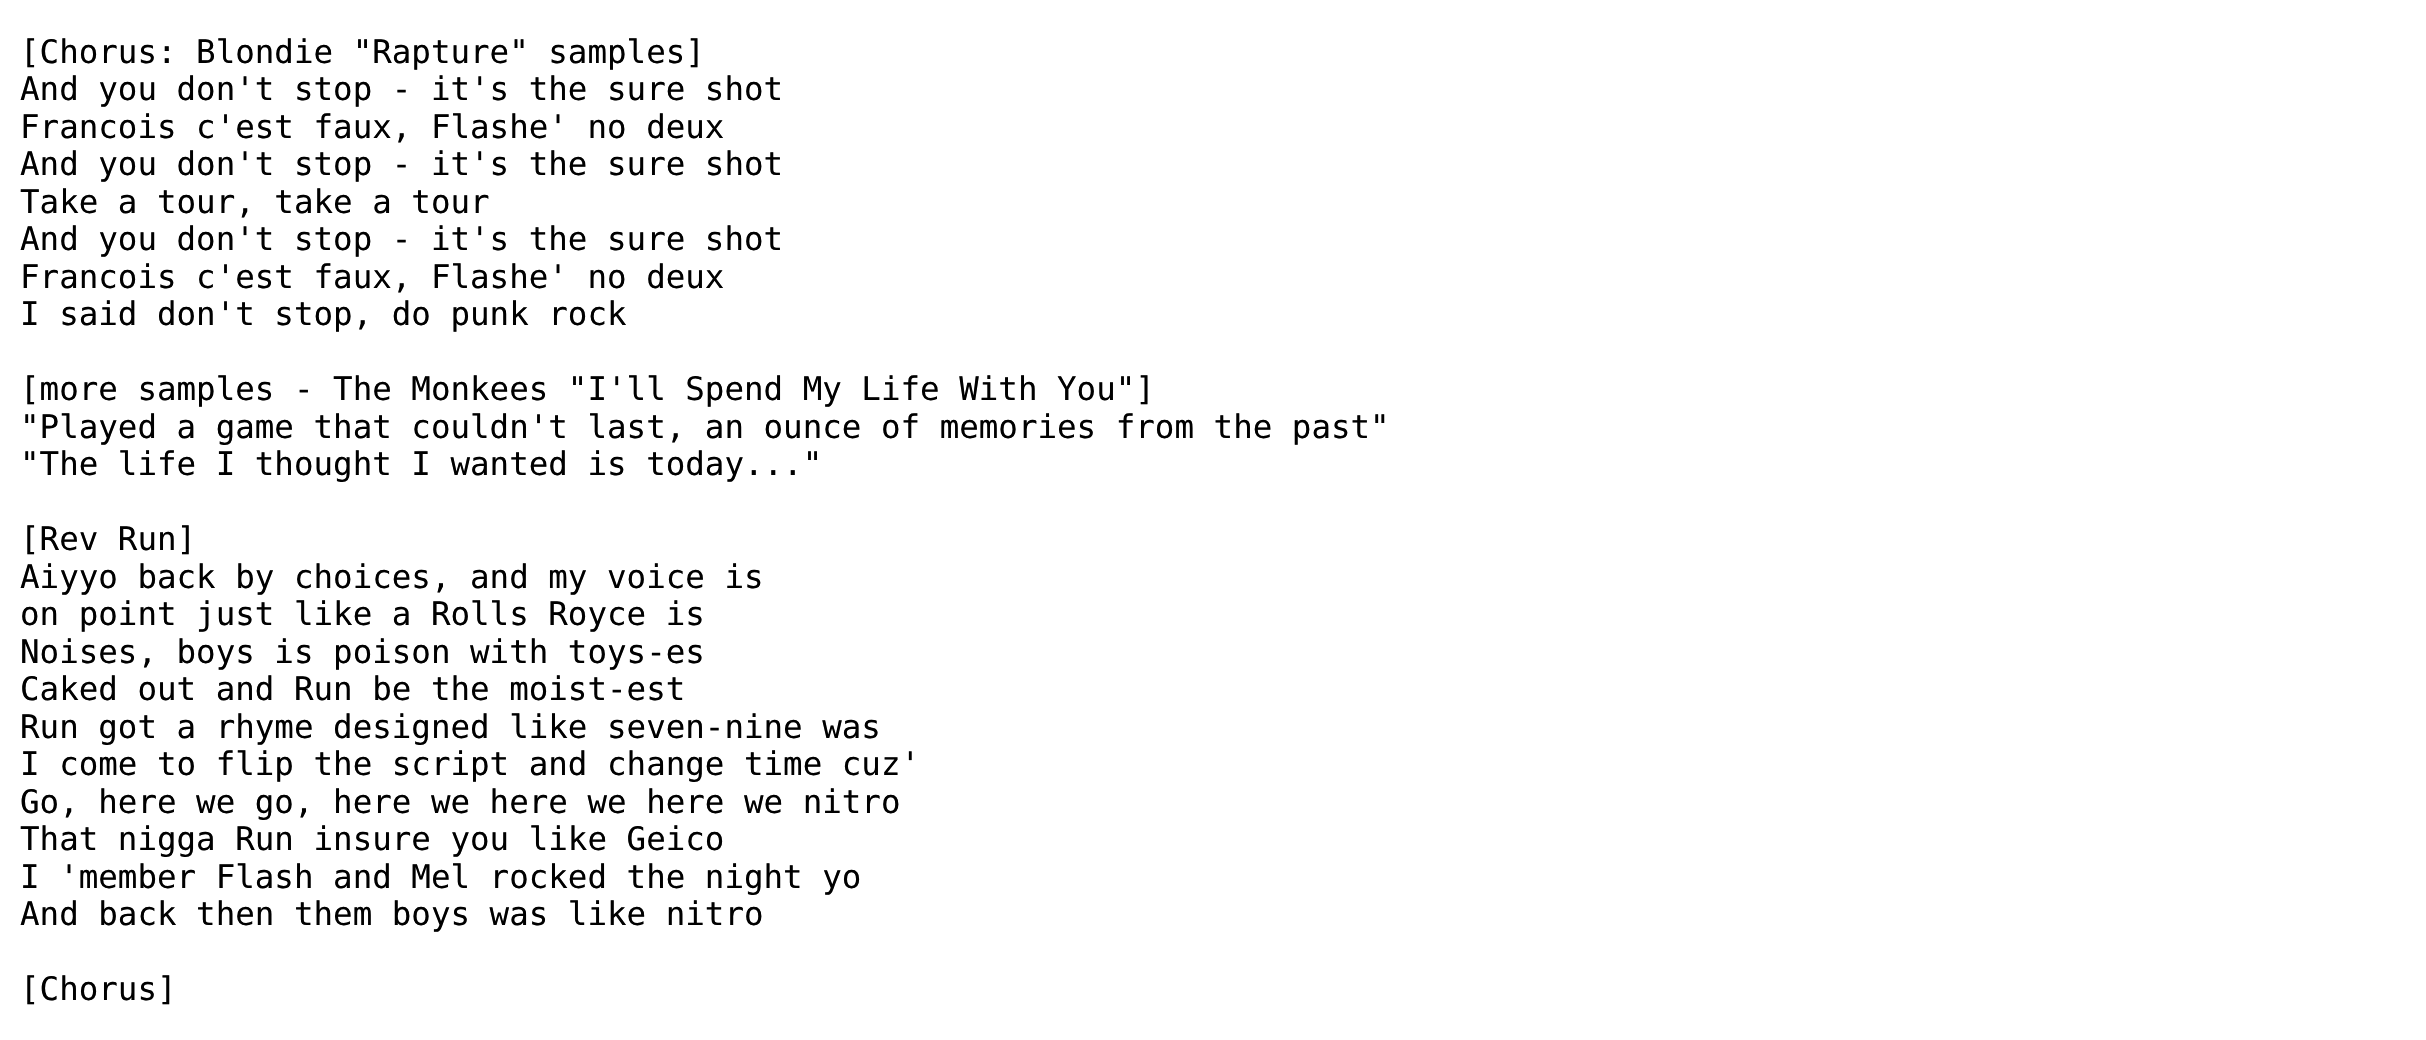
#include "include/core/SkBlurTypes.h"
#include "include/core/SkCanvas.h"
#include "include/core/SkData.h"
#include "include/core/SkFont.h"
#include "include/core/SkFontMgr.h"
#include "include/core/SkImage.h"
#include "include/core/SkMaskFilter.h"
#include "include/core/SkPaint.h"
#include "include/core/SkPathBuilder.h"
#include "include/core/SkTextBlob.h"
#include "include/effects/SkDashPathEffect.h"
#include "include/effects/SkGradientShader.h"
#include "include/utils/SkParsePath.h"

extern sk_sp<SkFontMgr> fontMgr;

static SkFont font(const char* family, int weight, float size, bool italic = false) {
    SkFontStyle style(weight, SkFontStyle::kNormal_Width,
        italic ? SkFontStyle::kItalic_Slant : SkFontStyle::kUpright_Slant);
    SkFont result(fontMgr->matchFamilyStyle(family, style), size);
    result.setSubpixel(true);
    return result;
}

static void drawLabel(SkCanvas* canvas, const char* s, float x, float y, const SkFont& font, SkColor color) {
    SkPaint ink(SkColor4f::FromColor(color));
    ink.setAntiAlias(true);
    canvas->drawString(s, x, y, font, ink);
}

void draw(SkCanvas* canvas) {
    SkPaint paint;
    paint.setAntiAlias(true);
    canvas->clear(0xFFFFFFFF);
    SkFont font1 = font("DejaVu Sans Mono", 400, 32.5f);
    drawLabel(canvas, "[Chorus: Blondie \"Rapture\" samples]", 20, 63, font1, 0xFF000000);
    drawLabel(canvas, "And you don't stop - it's the sure shot", 20, 100, font1, 0xFF000000);
    drawLabel(canvas, "Francois c'est faux, Flashe' no deux", 20, 138, font1, 0xFF000000);
    drawLabel(canvas, "And you don't stop - it's the sure shot", 20, 175, font1, 0xFF000000);
    drawLabel(canvas, "Take a tour, take a tour", 20, 213, font1, 0xFF000000);
    drawLabel(canvas, "And you don't stop - it's the sure shot", 20, 250, font1, 0xFF000000);
    drawLabel(canvas, "Francois c'est faux, Flashe' no deux", 20, 288, font1, 0xFF000000);
    drawLabel(canvas, "I said don't stop, do punk rock", 20, 325, font1, 0xFF000000);
    drawLabel(canvas, "[more samples - The Monkees \"I'll Spend My Life With You\"]", 20, 400, font1, 0xFF000000);
    drawLabel(canvas, "\"Played a game that couldn't last, an ounce of memories from the past\"", 20, 438, font1, 0xFF000000);
    drawLabel(canvas, "\"The life I thought I wanted is today...\"", 20, 475, font1, 0xFF000000);
    drawLabel(canvas, "[Rev Run]", 20, 550, font1, 0xFF000000);
    drawLabel(canvas, "Aiyyo back by choices, and my voice is", 20, 588, font1, 0xFF000000);
    drawLabel(canvas, "on point just like a Rolls Royce is", 20, 625, font1, 0xFF000000);
    drawLabel(canvas, "Noises, boys is poison with toys-es", 20, 663, font1, 0xFF000000);
    drawLabel(canvas, "Caked out and Run be the moist-est", 20, 700, font1, 0xFF000000);
    drawLabel(canvas, "Run got a rhyme designed like seven-nine was", 20, 738, font1, 0xFF000000);
    drawLabel(canvas, "I come to flip the script and change time cuz'", 20, 775, font1, 0xFF000000);
    drawLabel(canvas, "Go, here we go, here we here we here we nitro", 20, 813, font1, 0xFF000000);
    drawLabel(canvas, "That nigga Run insure you like Geico", 20, 850, font1, 0xFF000000);
    drawLabel(canvas, "I 'member Flash and Mel rocked the night yo", 20, 888, font1, 0xFF000000);
    drawLabel(canvas, "And back then them boys was like nitro", 20, 925, font1, 0xFF000000);
    drawLabel(canvas, "[Chorus]", 20, 1000, font1, 0xFF000000);
}
